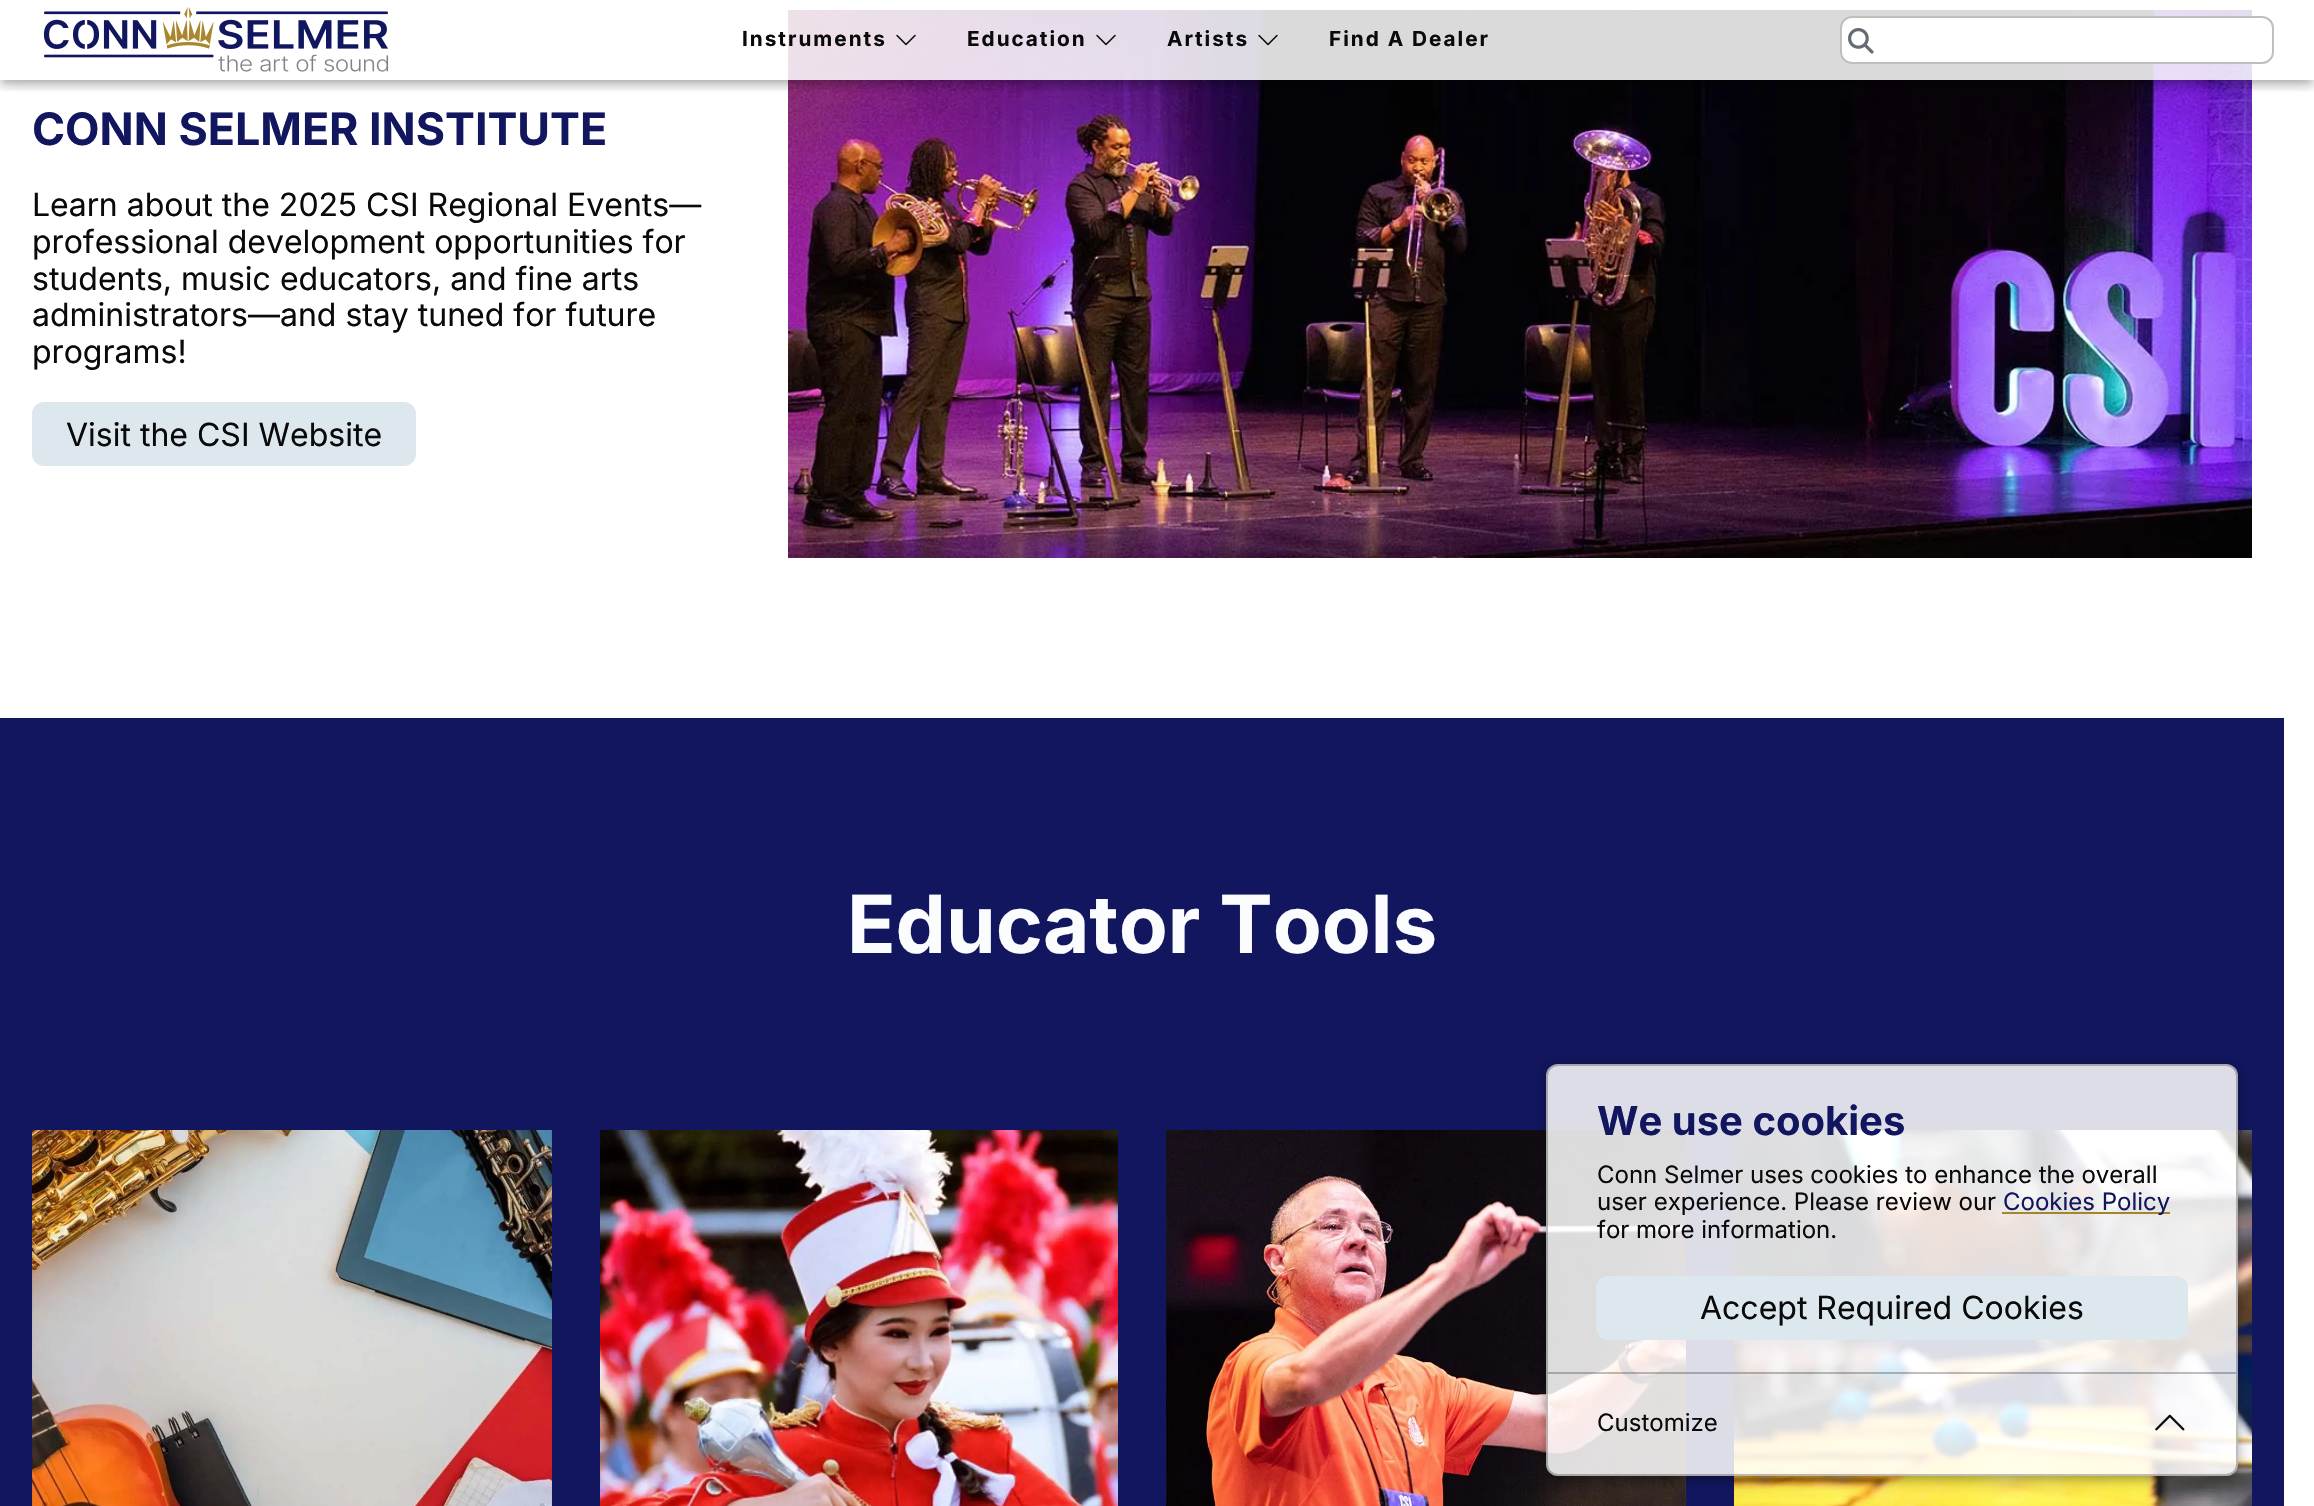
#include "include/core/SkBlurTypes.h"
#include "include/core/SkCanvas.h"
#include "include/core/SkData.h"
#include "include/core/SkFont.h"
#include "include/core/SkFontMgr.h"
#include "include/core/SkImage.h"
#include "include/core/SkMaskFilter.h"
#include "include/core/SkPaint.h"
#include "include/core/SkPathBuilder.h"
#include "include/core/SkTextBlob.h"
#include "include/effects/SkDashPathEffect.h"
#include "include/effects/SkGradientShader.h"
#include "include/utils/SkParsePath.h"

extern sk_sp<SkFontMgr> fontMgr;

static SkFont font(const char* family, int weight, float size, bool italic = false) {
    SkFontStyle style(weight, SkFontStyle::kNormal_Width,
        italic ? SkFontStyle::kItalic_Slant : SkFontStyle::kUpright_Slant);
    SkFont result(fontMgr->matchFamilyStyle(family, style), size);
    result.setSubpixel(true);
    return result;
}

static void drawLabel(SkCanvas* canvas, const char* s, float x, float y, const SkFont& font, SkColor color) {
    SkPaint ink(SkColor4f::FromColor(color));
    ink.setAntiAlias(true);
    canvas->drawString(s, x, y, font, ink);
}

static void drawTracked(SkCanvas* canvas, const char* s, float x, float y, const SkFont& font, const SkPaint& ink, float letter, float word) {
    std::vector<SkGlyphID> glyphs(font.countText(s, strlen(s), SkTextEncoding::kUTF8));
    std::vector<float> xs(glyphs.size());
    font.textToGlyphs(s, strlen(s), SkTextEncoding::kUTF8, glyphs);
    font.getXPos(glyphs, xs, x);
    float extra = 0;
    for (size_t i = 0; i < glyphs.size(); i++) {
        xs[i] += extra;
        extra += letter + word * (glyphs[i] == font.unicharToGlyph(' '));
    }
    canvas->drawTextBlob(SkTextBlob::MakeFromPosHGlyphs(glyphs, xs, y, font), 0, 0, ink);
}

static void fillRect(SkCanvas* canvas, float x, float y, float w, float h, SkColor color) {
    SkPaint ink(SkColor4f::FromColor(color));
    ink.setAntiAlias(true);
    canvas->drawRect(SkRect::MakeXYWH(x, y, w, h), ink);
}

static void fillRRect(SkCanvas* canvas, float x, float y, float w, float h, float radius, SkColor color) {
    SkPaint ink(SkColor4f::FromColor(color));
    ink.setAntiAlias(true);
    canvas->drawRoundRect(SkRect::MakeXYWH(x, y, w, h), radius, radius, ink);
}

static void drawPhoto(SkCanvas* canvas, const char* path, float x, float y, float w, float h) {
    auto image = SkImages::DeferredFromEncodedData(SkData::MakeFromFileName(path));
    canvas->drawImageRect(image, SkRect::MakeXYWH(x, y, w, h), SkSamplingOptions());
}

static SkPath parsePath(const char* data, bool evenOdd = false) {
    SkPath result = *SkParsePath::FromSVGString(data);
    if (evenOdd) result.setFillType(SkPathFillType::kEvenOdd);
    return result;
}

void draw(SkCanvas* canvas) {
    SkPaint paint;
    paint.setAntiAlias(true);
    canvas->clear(0xFFFFFFFF);
    drawPhoto(canvas, "assets/img6.png", 788, 10, 1464, 548);
    canvas->save();
    canvas->clipRect(SkRect::MakeXYWH(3, 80, 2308, 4));
    paint.setColor(0x12000000);
    paint.setMaskFilter(SkMaskFilter::MakeBlur(kNormal_SkBlurStyle, 3));
    canvas->drawRect(SkRect::MakeXYWH(4, 10, 2306, 72), paint);
    paint.setMaskFilter(nullptr);
    canvas->restore();
    canvas->save();
    canvas->clipRect(SkRect::MakeXYWH(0, 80, 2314, 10));
    paint.setColor(0x21000000);
    paint.setMaskFilter(SkMaskFilter::MakeBlur(kNormal_SkBlurStyle, 4));
    canvas->drawRect(SkRect::MakeXYWH(0, 6, 2314, 80), paint);
    paint.setMaskFilter(nullptr);
    canvas->restore();
    canvas->save();
    canvas->clipRect(SkRect::MakeXYWH(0, 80, 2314, 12));
    paint.setColor(0x33000000);
    paint.setMaskFilter(SkMaskFilter::MakeBlur(kNormal_SkBlurStyle, 8));
    canvas->drawRect(SkRect::MakeXYWH(0, 2, 2314, 80), paint);
    paint.setMaskFilter(nullptr);
    canvas->restore();
    fillRect(canvas, 788, 10, 1464, 70, 0xD9FFFFFF);
    drawPhoto(canvas, "assets/img1.png", 43, 7, 346, 65);
    SkFont font1 = font("Inter", 700, 20.75f);
    paint.setColor(0xFF0A0A0A);
    drawTracked(canvas, "Instruments", 742, 46, font1, paint, 2, 0);
    drawPhoto(canvas, "assets/img2.png", 896, 34, 20, 12);
    drawTracked(canvas, "Education", 967, 46, font1, paint, 2, 0);
    drawPhoto(canvas, "assets/img3.png", 1096, 34, 20, 12);
    drawTracked(canvas, "Artists", 1167, 46, font1, paint, 2, 0);
    drawPhoto(canvas, "assets/img4.png", 1258, 34, 20, 12);
    drawTracked(canvas, "Find A Dealer", 1329, 46, font1, paint, 2, 0);
    fillRRect(canvas, 1840, 16, 434, 48, 12, 0xFFFFFFFF);
    paint.setStroke(true);
    paint.setStrokeWidth(2);
    paint.setColor(0x40000000);
    canvas->drawRoundRect(SkRect::MakeXYWH(1841, 17, 432, 46), 11, 11, paint);
    drawPhoto(canvas, "assets/img5.png", 1848, 28, 26, 26);
    SkFont font2 = font("Inter", 700, 44.75f);
    drawLabel(canvas, "CONN SELMER INSTITUTE", 32, 145, font2, 0xFF11165E);
    SkFont font3 = font("Inter", 400, 32);
    drawLabel(canvas, "Learn about the 2025 CSI Regional Events—", 32, 216, font3, 0xFF0A0A0A);
    drawLabel(canvas, "professional development opportunities for", 32, 253, font3, 0xFF0A0A0A);
    drawLabel(canvas, "students, music educators, and fine arts", 32, 290, font3, 0xFF0A0A0A);
    drawLabel(canvas, "administrators—and stay tuned for future", 32, 326, font3, 0xFF0A0A0A);
    drawLabel(canvas, "programs!", 32, 363, font3, 0xFF0A0A0A);
    fillRRect(canvas, 32, 402, 384, 64, 12, 0xFFDDE7EE);
    drawLabel(canvas, "Visit the CSI Website", 66, 446, font3, 0xFF0A0A0A);
    fillRect(canvas, 0, 718, 2284, 788, 0xFF11165E);
    SkFont font4 = font("Inter", 700, 80);
    drawLabel(canvas, "Educator Tools", 847, 953, font4, 0xFFFBFCFE);
    drawPhoto(canvas, "assets/img7.png", 32, 1130, 520, 376);
    drawPhoto(canvas, "assets/img8.png", 600, 1130, 518, 376);
    drawPhoto(canvas, "assets/img9.png", 1166, 1130, 520, 376);
    drawPhoto(canvas, "assets/img10.png", 1734, 1130, 518, 376);
    canvas->save();
    canvas->clipPath(parsePath("M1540 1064H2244V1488H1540ZM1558 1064H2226C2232.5 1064 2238 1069.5 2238 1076V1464C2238 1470.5 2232.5 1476 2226 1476H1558C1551.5 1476 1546 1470.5 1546 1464V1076C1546 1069.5 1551.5 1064 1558 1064Z", true), true);
    paint.setStroke(false);
    paint.setColor(0x12000000);
    paint.setMaskFilter(SkMaskFilter::MakeBlur(kNormal_SkBlurStyle, 3));
    canvas->drawRoundRect(SkRect::MakeXYWH(1550, 1074, 684, 404), 8, 8, paint);
    paint.setMaskFilter(nullptr);
    canvas->restore();
    canvas->save();
    canvas->clipPath(parsePath("M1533 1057H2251V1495H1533ZM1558 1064H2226C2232.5 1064 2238 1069.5 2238 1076V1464C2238 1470.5 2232.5 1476 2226 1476H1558C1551.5 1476 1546 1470.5 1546 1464V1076C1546 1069.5 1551.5 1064 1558 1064Z", true), true);
    paint.setColor(0x21000000);
    paint.setMaskFilter(SkMaskFilter::MakeBlur(kNormal_SkBlurStyle, 4));
    canvas->drawRoundRect(SkRect::MakeXYWH(1546, 1070, 692, 412), 12, 12, paint);
    paint.setMaskFilter(nullptr);
    canvas->restore();
    canvas->save();
    canvas->clipPath(parsePath("M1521 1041H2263V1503H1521ZM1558 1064H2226C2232.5 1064 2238 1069.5 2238 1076V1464C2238 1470.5 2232.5 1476 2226 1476H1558C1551.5 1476 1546 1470.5 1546 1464V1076C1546 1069.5 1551.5 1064 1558 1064Z", true), true);
    paint.setColor(0x33000000);
    paint.setMaskFilter(SkMaskFilter::MakeBlur(kNormal_SkBlurStyle, 8));
    canvas->drawRoundRect(SkRect::MakeXYWH(1546, 1066, 692, 412), 12, 12, paint);
    paint.setMaskFilter(nullptr);
    canvas->restore();
    fillRRect(canvas, 1546, 1064, 692, 412, 12, 0xD9FFFFFF);
    paint.setStroke(true);
    paint.setColor(0x40000000);
    canvas->drawRoundRect(SkRect::MakeXYWH(1547, 1065, 690, 410), 11, 11, paint);
    SkFont font5 = font("Inter", 700, 40);
    drawLabel(canvas, "We use cookies", 1597, 1135, font5, 0xFF11165E);
    SkFont font6 = font("Inter", 400, 24);
    drawLabel(canvas, "Conn Selmer uses cookies to enhance the overall", 1597, 1183, font6, 0xFF0A0A0A);
    drawLabel(canvas, "user experience. Please review our", 1597, 1210, font6, 0xFF0A0A0A);
    fillRect(canvas, 2002, 1212, 168, 2, 0xFFA5842A);
    drawLabel(canvas, "Cookies Policy", 2003, 1210, font6, 0xFF11165E);
    drawLabel(canvas, "for more information.", 1597, 1238, font6, 0xFF0A0A0A);
    fillRRect(canvas, 1596, 1276, 592, 64, 12, 0xFFDDE7EE);
    drawLabel(canvas, "Accept Required Cookies", 1700, 1319, font3, 0xFF0A0A0A);
    fillRect(canvas, 1548, 1372, 688, 2, 0x40000000);
    drawLabel(canvas, "Customize", 1597, 1431, font6, 0xFF0A0A0A);
    drawPhoto(canvas, "assets/img11.png", 2155, 1414, 30, 17);
}
